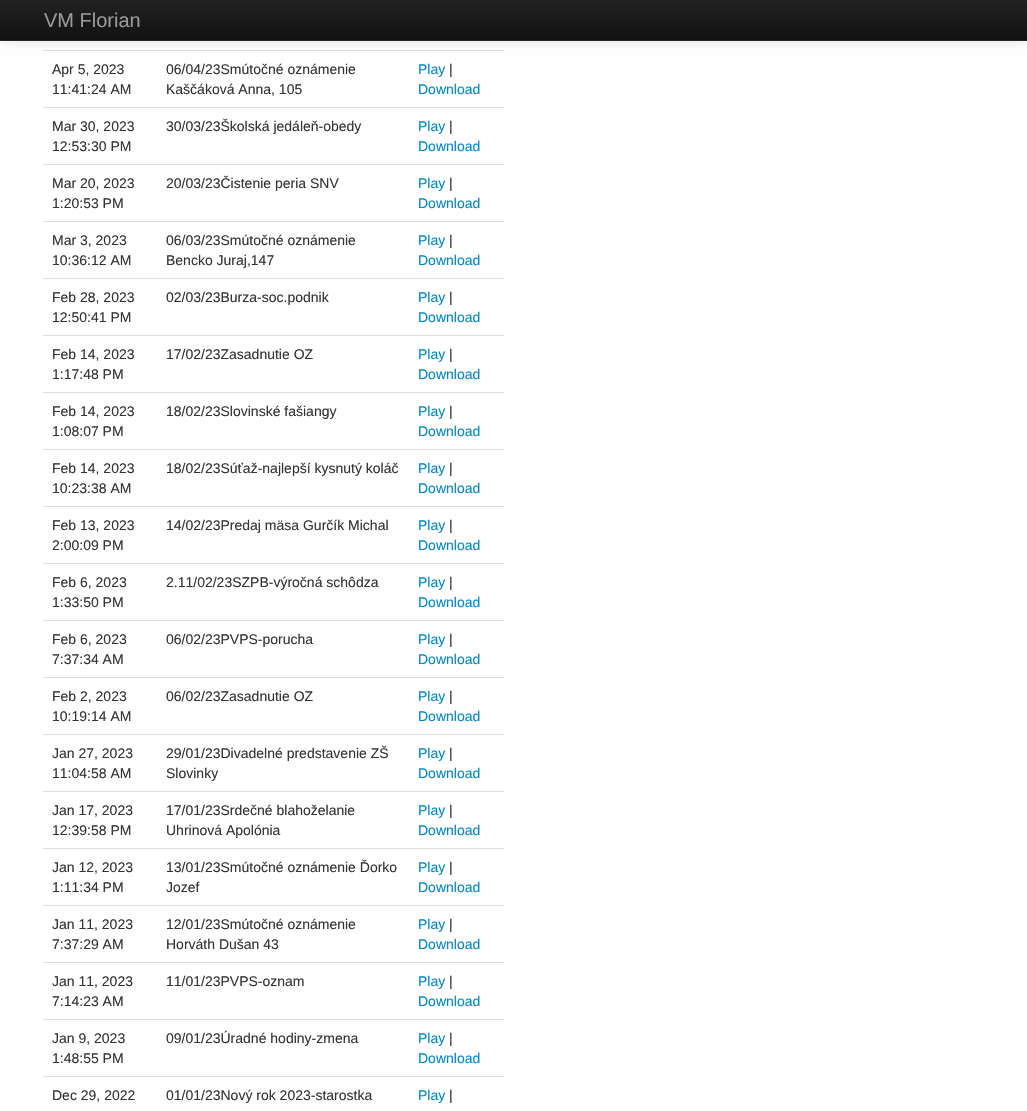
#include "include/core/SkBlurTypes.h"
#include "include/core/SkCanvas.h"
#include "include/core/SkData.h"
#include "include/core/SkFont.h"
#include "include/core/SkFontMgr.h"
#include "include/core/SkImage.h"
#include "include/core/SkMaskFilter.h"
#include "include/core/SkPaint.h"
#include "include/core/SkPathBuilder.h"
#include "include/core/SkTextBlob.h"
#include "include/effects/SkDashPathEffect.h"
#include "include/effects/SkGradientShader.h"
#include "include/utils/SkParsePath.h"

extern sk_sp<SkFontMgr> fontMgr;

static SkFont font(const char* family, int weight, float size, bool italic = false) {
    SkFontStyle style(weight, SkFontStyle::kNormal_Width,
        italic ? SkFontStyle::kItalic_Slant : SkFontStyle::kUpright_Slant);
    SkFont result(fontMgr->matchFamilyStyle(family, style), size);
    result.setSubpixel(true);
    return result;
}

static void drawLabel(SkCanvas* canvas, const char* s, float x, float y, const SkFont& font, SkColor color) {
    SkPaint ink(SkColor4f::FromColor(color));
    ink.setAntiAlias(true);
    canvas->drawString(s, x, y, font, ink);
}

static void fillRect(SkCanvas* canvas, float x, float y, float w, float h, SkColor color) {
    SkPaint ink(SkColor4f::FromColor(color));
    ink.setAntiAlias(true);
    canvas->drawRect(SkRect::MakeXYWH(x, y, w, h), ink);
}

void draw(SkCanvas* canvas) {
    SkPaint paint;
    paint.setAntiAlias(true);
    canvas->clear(0xFFFFFFFF);
    fillRect(canvas, 43, 50, 461, 1, 0xFFDDDDDD);
    paint.setColor(0x1A000000);
    paint.setMaskFilter(SkMaskFilter::MakeBlur(kNormal_SkBlurStyle, 5));
    canvas->drawRect(SkRect::MakeXYWH(0, 1, 1027, 41), paint);
    paint.setMaskFilter(nullptr);
    {
        const SkColor colors[] = {0xFF222222, 0xFF111111};
        const float stops[] = {0, 1};
        const SkPoint ends[] = {{514, 0}, {514, 40}};
        paint.setShader(SkGradientShader::MakeLinear(ends, colors, stops, 2, SkTileMode::kClamp));
        paint.setAlpha(255);
    }
    canvas->drawRect(SkRect::MakeXYWH(0, 0, 1027, 40), paint);
    fillRect(canvas, 0, 40, 1027, 1, 0xFF252525);
    SkFont font1 = font("Liberation Sans", 400, 20);
    drawLabel(canvas, "VM Florian", 44, 27, font1, 0xFF999999);
    SkFont font2 = font("Liberation Sans", 400, 14);
    drawLabel(canvas, "Apr 5, 2023", 52, 74, font2, 0xFF333333);
    drawLabel(canvas, "11:41:24 AM", 52, 94, font2, 0xFF333333);
    drawLabel(canvas, "06/04/23Smútočné oznámenie", 166, 74, font2, 0xFF333333);
    drawLabel(canvas, "Kaščáková Anna, 105", 166, 94, font2, 0xFF333333);
    drawLabel(canvas, "Play", 418, 74, font2, 0xFF0088CC);
    drawLabel(canvas, "|", 449, 74, font2, 0xFF333333);
    drawLabel(canvas, "Download", 418, 94, font2, 0xFF0088CC);
    drawLabel(canvas, "Mar 30, 2023", 52, 131, font2, 0xFF333333);
    drawLabel(canvas, "12:53:30 PM", 52, 151, font2, 0xFF333333);
    drawLabel(canvas, "30/03/23Školská jedáleň-obedy", 166, 131, font2, 0xFF333333);
    fillRect(canvas, 43, 107, 461, 1, 0xFFDDDDDD);
    drawLabel(canvas, "Play", 418, 131, font2, 0xFF0088CC);
    drawLabel(canvas, "|", 449, 131, font2, 0xFF333333);
    drawLabel(canvas, "Download", 418, 151, font2, 0xFF0088CC);
    drawLabel(canvas, "Mar 20, 2023", 52, 188, font2, 0xFF333333);
    drawLabel(canvas, "1:20:53 PM", 52, 208, font2, 0xFF333333);
    drawLabel(canvas, "20/03/23Čistenie peria SNV", 166, 188, font2, 0xFF333333);
    fillRect(canvas, 43, 164, 461, 1, 0xFFDDDDDD);
    drawLabel(canvas, "Play", 418, 188, font2, 0xFF0088CC);
    drawLabel(canvas, "|", 449, 188, font2, 0xFF333333);
    drawLabel(canvas, "Download", 418, 208, font2, 0xFF0088CC);
    drawLabel(canvas, "Mar 3, 2023", 52, 245, font2, 0xFF333333);
    drawLabel(canvas, "10:36:12 AM", 52, 265, font2, 0xFF333333);
    drawLabel(canvas, "06/03/23Smútočné oznámenie", 166, 245, font2, 0xFF333333);
    drawLabel(canvas, "Bencko Juraj,147", 166, 265, font2, 0xFF333333);
    fillRect(canvas, 43, 221, 461, 1, 0xFFDDDDDD);
    drawLabel(canvas, "Play", 418, 245, font2, 0xFF0088CC);
    drawLabel(canvas, "|", 449, 245, font2, 0xFF333333);
    drawLabel(canvas, "Download", 418, 265, font2, 0xFF0088CC);
    drawLabel(canvas, "Feb 28, 2023", 52, 302, font2, 0xFF333333);
    drawLabel(canvas, "12:50:41 PM", 52, 322, font2, 0xFF333333);
    drawLabel(canvas, "02/03/23Burza-soc.podnik", 166, 302, font2, 0xFF333333);
    fillRect(canvas, 43, 278, 461, 1, 0xFFDDDDDD);
    drawLabel(canvas, "Play", 418, 302, font2, 0xFF0088CC);
    drawLabel(canvas, "|", 449, 302, font2, 0xFF333333);
    drawLabel(canvas, "Download", 418, 322, font2, 0xFF0088CC);
    drawLabel(canvas, "Feb 14, 2023", 52, 359, font2, 0xFF333333);
    drawLabel(canvas, "1:17:48 PM", 52, 379, font2, 0xFF333333);
    drawLabel(canvas, "17/02/23Zasadnutie OZ", 166, 359, font2, 0xFF333333);
    fillRect(canvas, 43, 335, 461, 1, 0xFFDDDDDD);
    drawLabel(canvas, "Play", 418, 359, font2, 0xFF0088CC);
    drawLabel(canvas, "|", 449, 359, font2, 0xFF333333);
    drawLabel(canvas, "Download", 418, 379, font2, 0xFF0088CC);
    drawLabel(canvas, "Feb 14, 2023", 52, 416, font2, 0xFF333333);
    drawLabel(canvas, "1:08:07 PM", 52, 436, font2, 0xFF333333);
    drawLabel(canvas, "18/02/23Slovinské fašiangy", 166, 416, font2, 0xFF333333);
    fillRect(canvas, 43, 392, 461, 1, 0xFFDDDDDD);
    drawLabel(canvas, "Play", 418, 416, font2, 0xFF0088CC);
    drawLabel(canvas, "|", 449, 416, font2, 0xFF333333);
    drawLabel(canvas, "Download", 418, 436, font2, 0xFF0088CC);
    drawLabel(canvas, "Feb 14, 2023", 52, 473, font2, 0xFF333333);
    drawLabel(canvas, "10:23:38 AM", 52, 493, font2, 0xFF333333);
    drawLabel(canvas, "18/02/23Súťaž-najlepší kysnutý koláč", 166, 473, font2, 0xFF333333);
    fillRect(canvas, 43, 449, 461, 1, 0xFFDDDDDD);
    drawLabel(canvas, "Play", 418, 473, font2, 0xFF0088CC);
    drawLabel(canvas, "|", 449, 473, font2, 0xFF333333);
    drawLabel(canvas, "Download", 418, 493, font2, 0xFF0088CC);
    drawLabel(canvas, "Feb 13, 2023", 52, 530, font2, 0xFF333333);
    drawLabel(canvas, "2:00:09 PM", 52, 550, font2, 0xFF333333);
    drawLabel(canvas, "14/02/23Predaj mäsa Gurčík Michal", 166, 530, font2, 0xFF333333);
    fillRect(canvas, 43, 506, 461, 1, 0xFFDDDDDD);
    drawLabel(canvas, "Play", 418, 530, font2, 0xFF0088CC);
    drawLabel(canvas, "|", 449, 530, font2, 0xFF333333);
    drawLabel(canvas, "Download", 418, 550, font2, 0xFF0088CC);
    drawLabel(canvas, "Feb 6, 2023", 52, 587, font2, 0xFF333333);
    drawLabel(canvas, "1:33:50 PM", 52, 607, font2, 0xFF333333);
    drawLabel(canvas, "2.11/02/23SZPB-výročná schôdza", 166, 587, font2, 0xFF333333);
    fillRect(canvas, 43, 563, 461, 1, 0xFFDDDDDD);
    drawLabel(canvas, "Play", 418, 587, font2, 0xFF0088CC);
    drawLabel(canvas, "|", 449, 587, font2, 0xFF333333);
    drawLabel(canvas, "Download", 418, 607, font2, 0xFF0088CC);
    drawLabel(canvas, "Feb 6, 2023", 52, 644, font2, 0xFF333333);
    drawLabel(canvas, "7:37:34 AM", 52, 664, font2, 0xFF333333);
    drawLabel(canvas, "06/02/23PVPS-porucha", 166, 644, font2, 0xFF333333);
    fillRect(canvas, 43, 620, 461, 1, 0xFFDDDDDD);
    drawLabel(canvas, "Play", 418, 644, font2, 0xFF0088CC);
    drawLabel(canvas, "|", 449, 644, font2, 0xFF333333);
    drawLabel(canvas, "Download", 418, 664, font2, 0xFF0088CC);
    drawLabel(canvas, "Feb 2, 2023", 52, 701, font2, 0xFF333333);
    drawLabel(canvas, "10:19:14 AM", 52, 721, font2, 0xFF333333);
    drawLabel(canvas, "06/02/23Zasadnutie OZ", 166, 701, font2, 0xFF333333);
    fillRect(canvas, 43, 677, 461, 1, 0xFFDDDDDD);
    drawLabel(canvas, "Play", 418, 701, font2, 0xFF0088CC);
    drawLabel(canvas, "|", 449, 701, font2, 0xFF333333);
    drawLabel(canvas, "Download", 418, 721, font2, 0xFF0088CC);
    drawLabel(canvas, "Jan 27, 2023", 52, 758, font2, 0xFF333333);
    drawLabel(canvas, "11:04:58 AM", 52, 778, font2, 0xFF333333);
    drawLabel(canvas, "29/01/23Divadelné predstavenie ZŠ", 166, 758, font2, 0xFF333333);
    drawLabel(canvas, "Slovinky", 166, 778, font2, 0xFF333333);
    fillRect(canvas, 43, 734, 461, 1, 0xFFDDDDDD);
    drawLabel(canvas, "Play", 418, 758, font2, 0xFF0088CC);
    drawLabel(canvas, "|", 449, 758, font2, 0xFF333333);
    drawLabel(canvas, "Download", 418, 778, font2, 0xFF0088CC);
    drawLabel(canvas, "Jan 17, 2023", 52, 815, font2, 0xFF333333);
    drawLabel(canvas, "12:39:58 PM", 52, 835, font2, 0xFF333333);
    drawLabel(canvas, "17/01/23Srdečné blahoželanie", 166, 815, font2, 0xFF333333);
    drawLabel(canvas, "Uhrinová Apolónia", 166, 835, font2, 0xFF333333);
    fillRect(canvas, 43, 791, 461, 1, 0xFFDDDDDD);
    drawLabel(canvas, "Play", 418, 815, font2, 0xFF0088CC);
    drawLabel(canvas, "|", 449, 815, font2, 0xFF333333);
    drawLabel(canvas, "Download", 418, 835, font2, 0xFF0088CC);
    drawLabel(canvas, "Jan 12, 2023", 52, 872, font2, 0xFF333333);
    drawLabel(canvas, "1:11:34 PM", 52, 892, font2, 0xFF333333);
    drawLabel(canvas, "13/01/23Smútočné oznámenie Ďorko", 166, 872, font2, 0xFF333333);
    drawLabel(canvas, "Jozef", 166, 892, font2, 0xFF333333);
    fillRect(canvas, 43, 848, 461, 1, 0xFFDDDDDD);
    drawLabel(canvas, "Play", 418, 872, font2, 0xFF0088CC);
    drawLabel(canvas, "|", 449, 872, font2, 0xFF333333);
    drawLabel(canvas, "Download", 418, 892, font2, 0xFF0088CC);
    drawLabel(canvas, "Jan 11, 2023", 52, 929, font2, 0xFF333333);
    drawLabel(canvas, "7:37:29 AM", 52, 949, font2, 0xFF333333);
    drawLabel(canvas, "12/01/23Smútočné oznámenie", 166, 929, font2, 0xFF333333);
    drawLabel(canvas, "Horváth Dušan 43", 166, 949, font2, 0xFF333333);
    fillRect(canvas, 43, 905, 461, 1, 0xFFDDDDDD);
    drawLabel(canvas, "Play", 418, 929, font2, 0xFF0088CC);
    drawLabel(canvas, "|", 449, 929, font2, 0xFF333333);
    drawLabel(canvas, "Download", 418, 949, font2, 0xFF0088CC);
    drawLabel(canvas, "Jan 11, 2023", 52, 986, font2, 0xFF333333);
    drawLabel(canvas, "7:14:23 AM", 52, 1006, font2, 0xFF333333);
    drawLabel(canvas, "11/01/23PVPS-oznam", 166, 986, font2, 0xFF333333);
    fillRect(canvas, 43, 962, 461, 1, 0xFFDDDDDD);
    drawLabel(canvas, "Play", 418, 986, font2, 0xFF0088CC);
    drawLabel(canvas, "|", 449, 986, font2, 0xFF333333);
    drawLabel(canvas, "Download", 418, 1006, font2, 0xFF0088CC);
    drawLabel(canvas, "Jan 9, 2023", 52, 1043, font2, 0xFF333333);
    drawLabel(canvas, "1:48:55 PM", 52, 1063, font2, 0xFF333333);
    drawLabel(canvas, "09/01/23Úradné hodiny-zmena", 166, 1043, font2, 0xFF333333);
    fillRect(canvas, 43, 1019, 461, 1, 0xFFDDDDDD);
    drawLabel(canvas, "Play", 418, 1043, font2, 0xFF0088CC);
    drawLabel(canvas, "|", 449, 1043, font2, 0xFF333333);
    drawLabel(canvas, "Download", 418, 1063, font2, 0xFF0088CC);
    drawLabel(canvas, "Dec 29, 2022", 52, 1100, font2, 0xFF333333);
    drawLabel(canvas, "01/01/23Nový rok 2023-starostka", 166, 1100, font2, 0xFF333333);
    fillRect(canvas, 43, 1076, 461, 1, 0xFFDDDDDD);
    drawLabel(canvas, "Play", 418, 1100, font2, 0xFF0088CC);
    drawLabel(canvas, "|", 449, 1100, font2, 0xFF333333);
}
